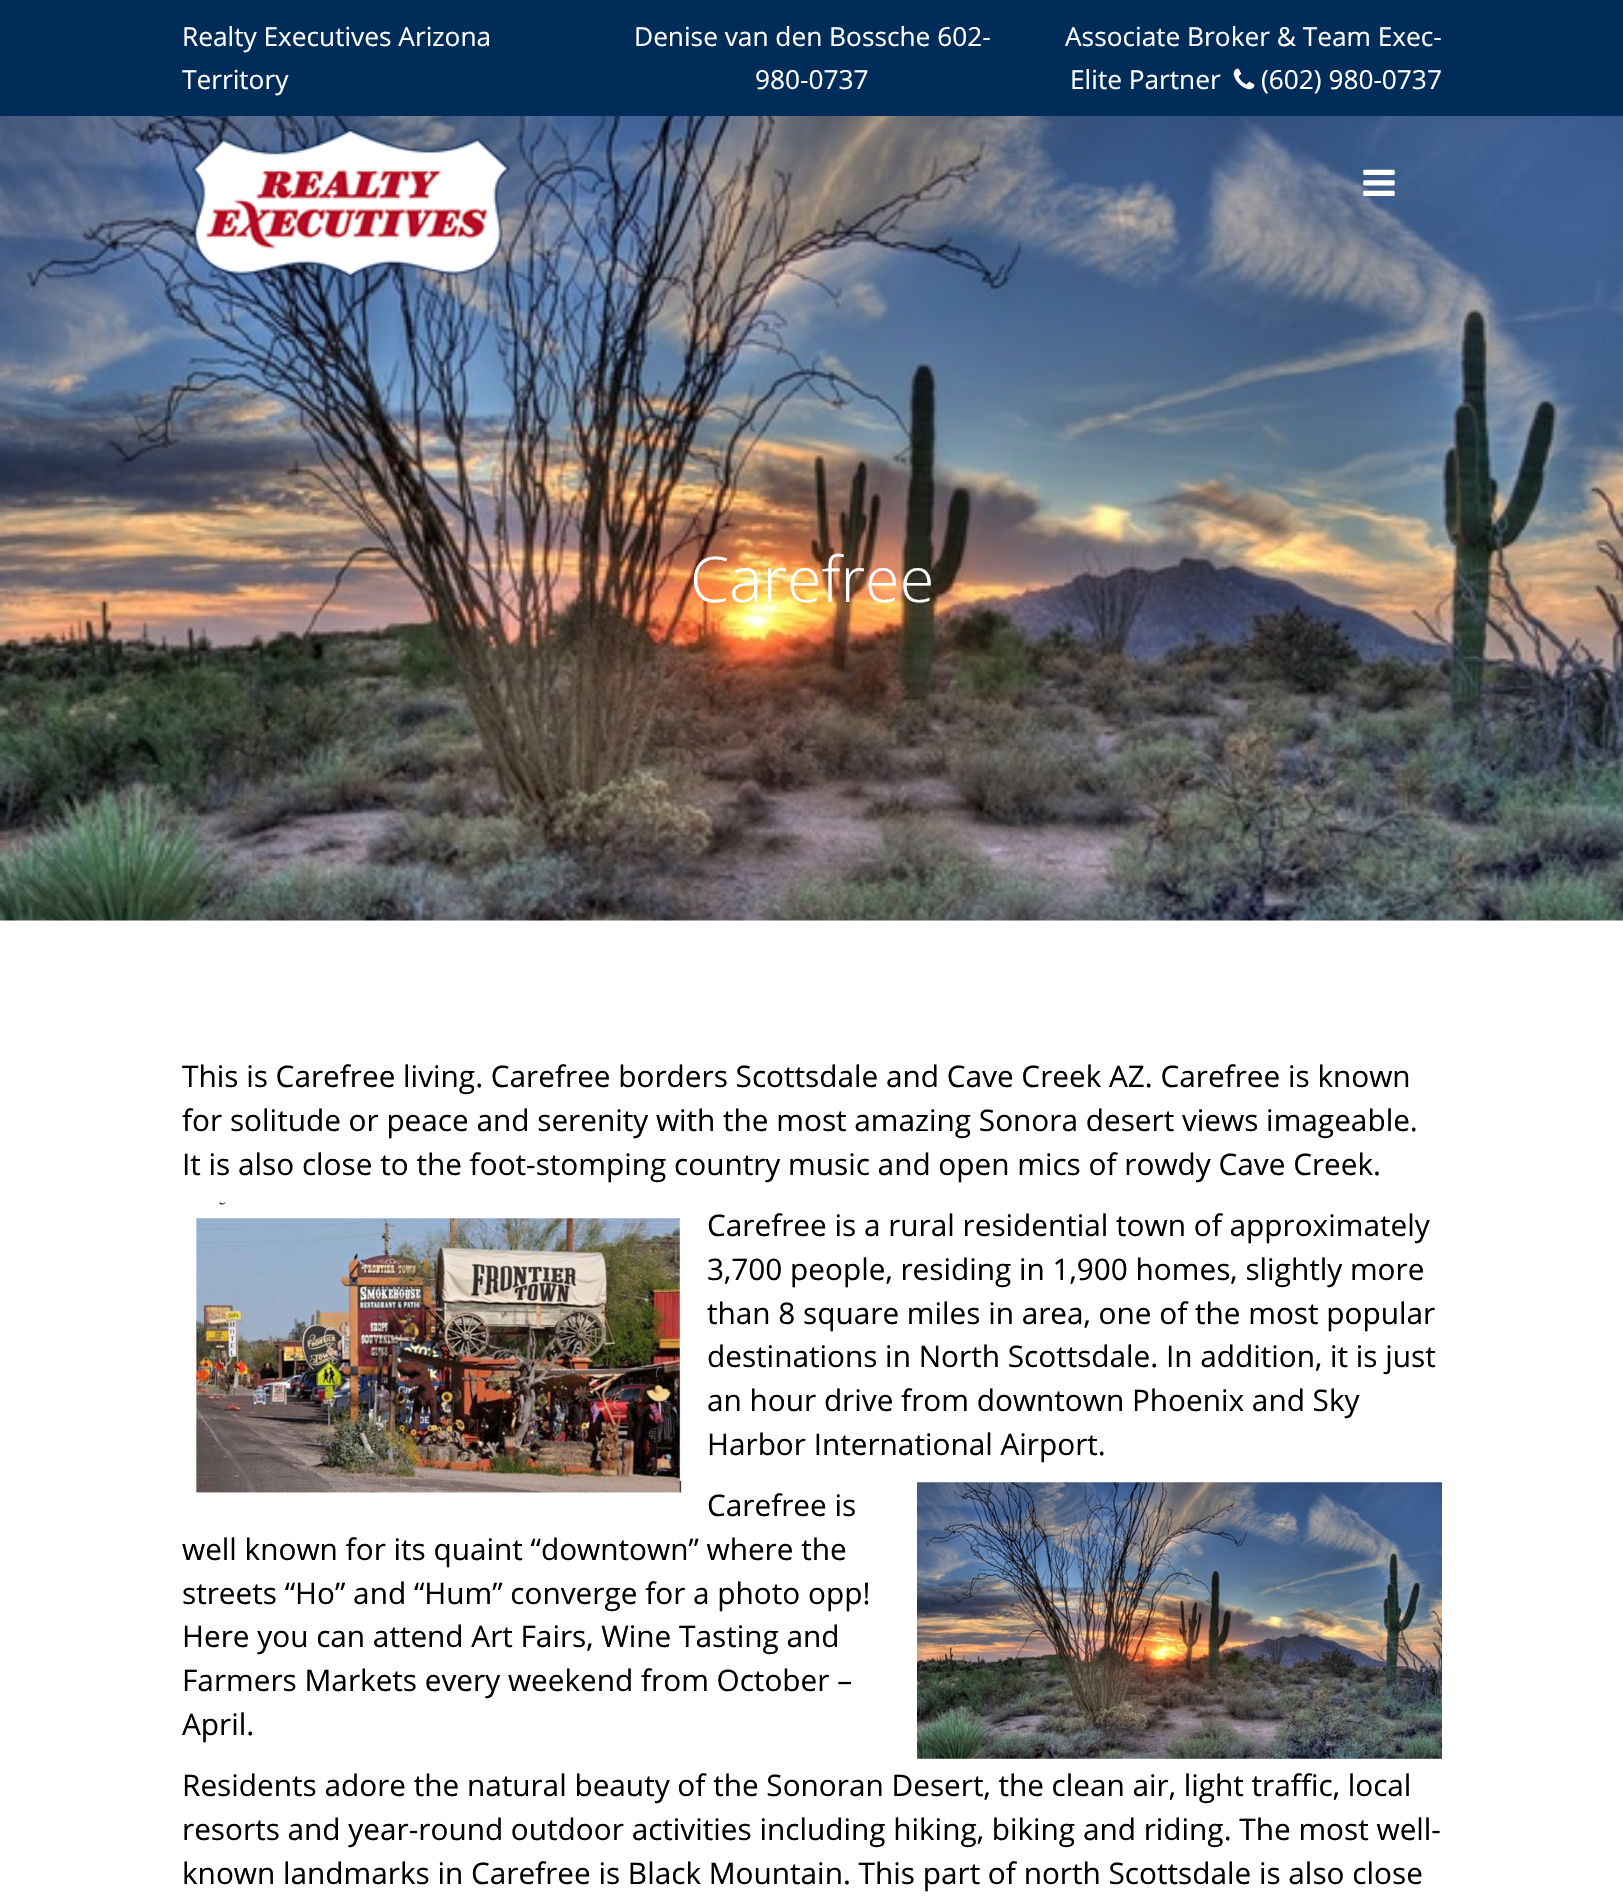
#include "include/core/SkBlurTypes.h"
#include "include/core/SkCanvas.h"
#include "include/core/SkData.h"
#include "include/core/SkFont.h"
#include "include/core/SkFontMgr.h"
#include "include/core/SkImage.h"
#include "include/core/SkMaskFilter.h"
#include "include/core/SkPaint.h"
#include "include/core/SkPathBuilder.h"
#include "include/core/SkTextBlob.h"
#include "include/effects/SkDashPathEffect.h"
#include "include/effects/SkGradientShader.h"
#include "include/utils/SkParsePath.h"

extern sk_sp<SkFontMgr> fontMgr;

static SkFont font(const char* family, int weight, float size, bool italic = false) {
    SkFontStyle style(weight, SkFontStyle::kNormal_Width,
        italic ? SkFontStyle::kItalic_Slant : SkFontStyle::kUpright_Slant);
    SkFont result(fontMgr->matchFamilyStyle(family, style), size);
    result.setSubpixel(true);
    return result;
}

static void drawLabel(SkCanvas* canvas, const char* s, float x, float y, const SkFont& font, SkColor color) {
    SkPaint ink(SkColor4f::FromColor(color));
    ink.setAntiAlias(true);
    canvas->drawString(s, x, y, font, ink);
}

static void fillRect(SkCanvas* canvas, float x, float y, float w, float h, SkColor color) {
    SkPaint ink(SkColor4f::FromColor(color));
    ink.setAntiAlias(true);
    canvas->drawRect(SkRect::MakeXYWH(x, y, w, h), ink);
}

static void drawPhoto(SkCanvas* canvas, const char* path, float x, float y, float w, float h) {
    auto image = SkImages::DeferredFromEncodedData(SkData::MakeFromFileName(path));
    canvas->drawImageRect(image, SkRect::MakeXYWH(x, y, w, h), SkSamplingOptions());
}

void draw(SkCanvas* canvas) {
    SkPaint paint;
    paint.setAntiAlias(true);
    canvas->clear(0xFFFFFFFF);
    fillRect(canvas, 0, 0, 1623, 116, 0xFF002C59);
    SkFont font1 = font("Open Sans", 400, 26.25f);
    drawLabel(canvas, "Realty Executives Arizona", 182, 46, font1, 0xFFFFFFFF);
    drawLabel(canvas, "Territory", 182, 89, font1, 0xFFFFFFFF);
    drawLabel(canvas, "Denise van den Bossche 602-", 634, 46, font1, 0xFFFFFFFF);
    drawLabel(canvas, "980-0737", 755, 89, font1, 0xFFFFFFFF);
    drawLabel(canvas, "Associate Broker & Team Exec-", 1065, 46, font1, 0xFFFFFFFF);
    drawLabel(canvas, "Elite Partner", 1070, 89, font1, 0xFFFFFFFF);
    drawPhoto(canvas, "assets/img1.png", 1233, 68, 22, 22);
    drawLabel(canvas, "(602) 980-0737", 1261, 89, font1, 0xFFFFFFFF);
    drawPhoto(canvas, "assets/img4.png", 0, 116, 1623, 805);
    drawPhoto(canvas, "assets/img2.png", 192, 129, 318, 148);
    drawPhoto(canvas, "assets/img3.png", 1363, 169, 32, 27);
    SkFont font2 = font("Open Sans", 300, 63);
    drawLabel(canvas, "Carefree", 690, 602, font2, 0xFFFFFFFF);
    SkFont font3 = font("Open Sans", 400, 29.75f);
    drawLabel(canvas, "This is Carefree living. Carefree borders Scottsdale and Cave Creek AZ. Carefree is known", 182, 1087, font3, 0xFF000000);
    drawLabel(canvas, "for solitude or peace and serenity with the most amazing Sonora desert views imageable.", 182, 1131, font3, 0xFF000000);
    drawLabel(canvas, "It is also close to the foot-stomping country music and open mics of rowdy Cave Creek.", 182, 1175, font3, 0xFF000000);
    drawPhoto(canvas, "assets/img5.png", 196, 1202, 486, 291);
    drawLabel(canvas, "Carefree is a rural residential town of approximately", 707, 1236, font3, 0xFF000000);
    drawLabel(canvas, "3,700 people, residing in 1,900 homes, slightly more", 707, 1280, font3, 0xFF000000);
    drawLabel(canvas, "than 8 square miles in area, one of the most popular", 707, 1324, font3, 0xFF000000);
    drawLabel(canvas, "destinations in North Scottsdale. In addition, it is just", 707, 1367, font3, 0xFF000000);
    drawLabel(canvas, "an hour drive from downtown Phoenix and Sky", 707, 1411, font3, 0xFF000000);
    drawLabel(canvas, "Harbor International Airport.", 707, 1455, font3, 0xFF000000);
    drawLabel(canvas, "Carefree is", 707, 1516, font3, 0xFF000000);
    drawLabel(canvas, "well known for its quaint “downtown” where the", 182, 1560, font3, 0xFF000000);
    drawLabel(canvas, "streets “Ho” and “Hum” converge for a photo opp!", 182, 1604, font3, 0xFF000000);
    drawLabel(canvas, "Here you can attend Art Fairs, Wine Tasting and", 182, 1647, font3, 0xFF000000);
    drawLabel(canvas, "Farmers Markets every weekend from October –", 182, 1691, font3, 0xFF000000);
    drawLabel(canvas, "April.", 182, 1735, font3, 0xFF000000);
    drawPhoto(canvas, "assets/img6.png", 917, 1482, 525, 277);
    drawLabel(canvas, "Residents adore the natural beauty of the Sonoran Desert, the clean air, light traffic, local", 182, 1796, font3, 0xFF000000);
    drawLabel(canvas, "resorts and year-round outdoor activities including hiking, biking and riding. The most well-", 182, 1840, font3, 0xFF000000);
    drawLabel(canvas, "known landmarks in Carefree is Black Mountain. This part of north Scottsdale is also close", 182, 1884, font3, 0xFF000000);
}
